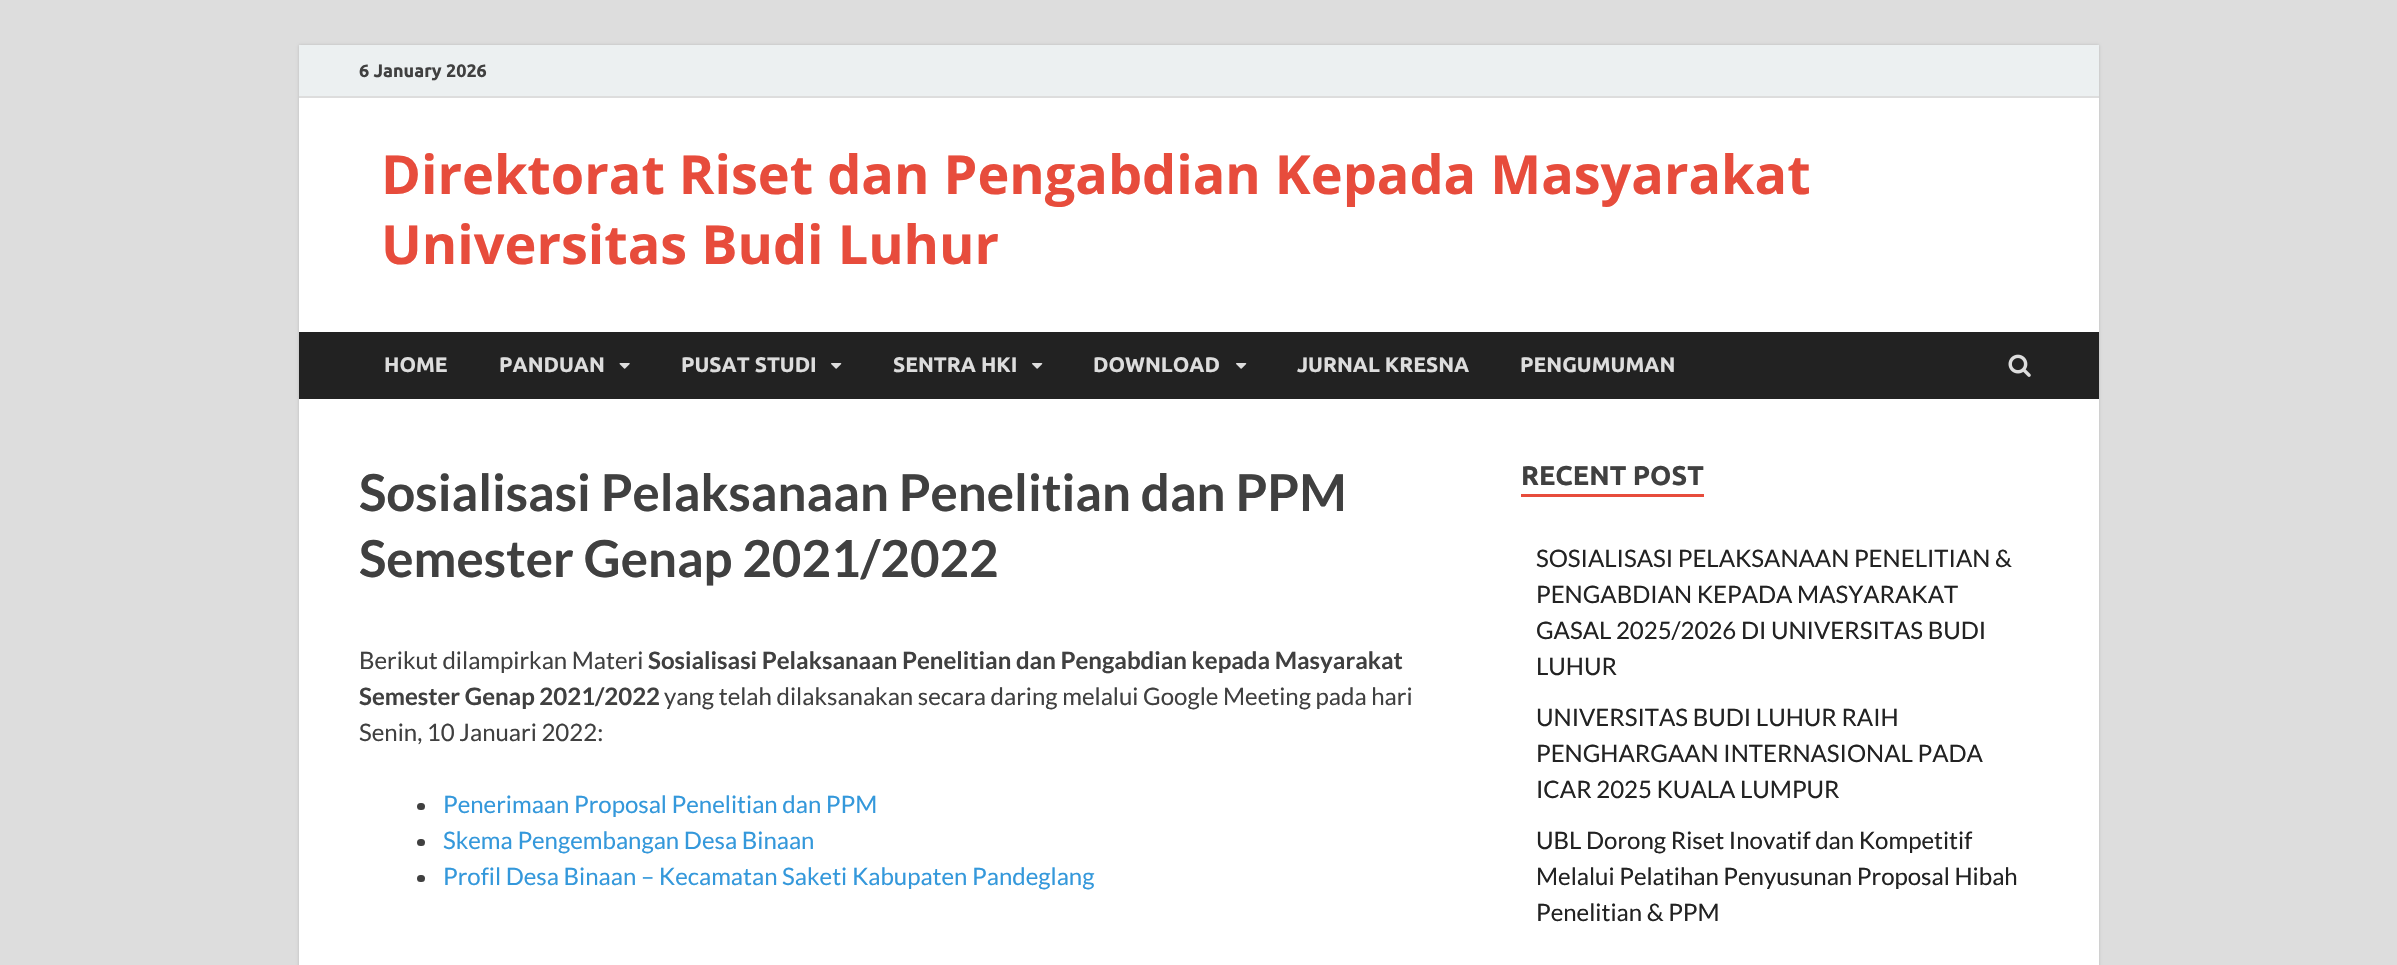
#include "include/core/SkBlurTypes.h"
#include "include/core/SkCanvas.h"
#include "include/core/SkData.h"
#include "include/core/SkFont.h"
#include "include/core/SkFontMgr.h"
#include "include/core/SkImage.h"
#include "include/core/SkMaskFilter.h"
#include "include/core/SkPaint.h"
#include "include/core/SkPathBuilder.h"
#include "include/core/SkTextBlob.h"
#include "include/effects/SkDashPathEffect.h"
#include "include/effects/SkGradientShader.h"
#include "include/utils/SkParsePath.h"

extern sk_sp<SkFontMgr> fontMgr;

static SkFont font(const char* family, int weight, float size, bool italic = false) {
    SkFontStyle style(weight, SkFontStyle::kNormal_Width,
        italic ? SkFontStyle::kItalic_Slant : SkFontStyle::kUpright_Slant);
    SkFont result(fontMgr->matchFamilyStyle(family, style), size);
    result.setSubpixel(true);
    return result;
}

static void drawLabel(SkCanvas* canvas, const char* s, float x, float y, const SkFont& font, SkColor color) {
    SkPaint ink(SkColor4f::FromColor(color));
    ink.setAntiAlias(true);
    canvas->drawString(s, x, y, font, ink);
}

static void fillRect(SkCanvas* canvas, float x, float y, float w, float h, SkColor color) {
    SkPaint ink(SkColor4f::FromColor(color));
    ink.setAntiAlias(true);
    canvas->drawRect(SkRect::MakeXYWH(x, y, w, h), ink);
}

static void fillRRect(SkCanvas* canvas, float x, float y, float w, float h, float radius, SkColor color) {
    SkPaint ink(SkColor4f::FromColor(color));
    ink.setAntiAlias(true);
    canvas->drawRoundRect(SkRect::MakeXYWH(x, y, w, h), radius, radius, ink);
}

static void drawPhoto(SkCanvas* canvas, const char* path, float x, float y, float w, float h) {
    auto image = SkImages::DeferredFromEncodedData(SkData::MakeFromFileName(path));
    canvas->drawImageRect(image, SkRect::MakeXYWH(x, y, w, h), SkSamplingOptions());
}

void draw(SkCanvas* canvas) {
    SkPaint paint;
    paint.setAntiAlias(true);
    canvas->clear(0xFFDDDDDD);
    paint.setColor(0xFFBBBBBB);
    paint.setMaskFilter(SkMaskFilter::MakeBlur(kNormal_SkBlurStyle, 1.5f));
    canvas->drawRect(SkRect::MakeXYWH(299, 45, 1800, 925), paint);
    paint.setMaskFilter(nullptr);
    fillRect(canvas, 299, 98, 1800, 867, 0xFFFFFFFF);
    fillRect(canvas, 299, 45, 1800, 51, 0xFFECF0F1);
    fillRect(canvas, 299, 96, 1800, 2, 0xFFDDDDDD);
    SkFont font1 = font("Ubuntu", 700, 18);
    drawLabel(canvas, "6 January 2026", 359, 77, font1, 0xFF404040);
    SkFont font2 = font("Open Sans", 700, 54);
    drawLabel(canvas, "Direktorat Riset dan Pengabdian Kepada Masyarakat", 381, 194, font2, 0xFFE74C3C);
    drawLabel(canvas, "Universitas Budi Luhur", 381, 264, font2, 0xFFE74C3C);
    fillRect(canvas, 299, 332, 1800, 67, 0xFF222222);
    SkFont font3 = font("Ubuntu", 700, 21);
    drawLabel(canvas, "HOME", 384, 372, font3, 0xFFDDDDDD);
    drawLabel(canvas, "PANDUAN", 499, 372, font3, 0xFFDDDDDD);
    drawPhoto(canvas, "assets/img1.png", 619, 363, 11, 6);
    drawLabel(canvas, "PUSAT STUDI", 681, 372, font3, 0xFFDDDDDD);
    drawPhoto(canvas, "assets/img2.png", 831, 363, 11, 6);
    drawLabel(canvas, "SENTRA HKI", 893, 372, font3, 0xFFDDDDDD);
    drawPhoto(canvas, "assets/img2.png", 1032, 363, 11, 6);
    drawLabel(canvas, "DOWNLOAD", 1093, 372, font3, 0xFFDDDDDD);
    drawPhoto(canvas, "assets/img2.png", 1236, 363, 11, 6);
    drawLabel(canvas, "JURNAL KRESNA", 1297, 372, font3, 0xFFDDDDDD);
    drawLabel(canvas, "PENGUMUMAN", 1520, 372, font3, 0xFFDDDDDD);
    drawPhoto(canvas, "assets/img3.png", 2008, 354, 23, 23);
    SkFont font4 = font("Lato", 700, 51);
    drawLabel(canvas, "Sosialisasi Pelaksanaan Penelitian dan PPM", 359, 511, font4, 0xFF404040);
    drawLabel(canvas, "Semester Genap 2021/2022", 359, 577, font4, 0xFF404040);
    SkFont font5 = font("Lato", 400, 24);
    drawLabel(canvas, "Berikut dilampirkan Materi", 359, 669, font5, 0xFF404040);
    SkFont font6 = font("Lato", 700, 24);
    drawLabel(canvas, "Sosialisasi Pelaksanaan Penelitian dan Pengabdian kepada Masyarakat", 648, 669, font6, 0xFF404040);
    drawLabel(canvas, "Semester Genap 2021/2022", 359, 705, font6, 0xFF404040);
    drawLabel(canvas, "yang telah dilaksanakan secara daring melalui Google Meeting pada hari", 664, 705, font5, 0xFF404040);
    drawLabel(canvas, "Senin, 10 Januari 2022:", 359, 741, font5, 0xFF404040);
    fillRRect(canvas, 417, 803, 8, 7, 3.5f, 0xFF404040);
    drawLabel(canvas, "Penerimaan Proposal Penelitian dan PPM", 443, 813, font5, 0xFF3498DB);
    fillRRect(canvas, 417, 839, 8, 7, 3.5f, 0xFF404040);
    drawLabel(canvas, "Skema Pengembangan Desa Binaan", 443, 849, font5, 0xFF3498DB);
    fillRRect(canvas, 417, 875, 8, 7, 3.5f, 0xFF404040);
    drawLabel(canvas, "Profil Desa Binaan – Kecamatan Saketi Kabupaten Pandeglang", 443, 885, font5, 0xFF3498DB);
    fillRect(canvas, 1521, 494, 183, 3, 0xFFE74C3C);
    SkFont font7 = font("Ubuntu", 700, 27);
    drawLabel(canvas, "RECENT POST", 1521, 485, font7, 0xFF404040);
    drawLabel(canvas, "SOSIALISASI PELAKSANAAN PENELITIAN &", 1536, 567, font5, 0xFF222222);
    drawLabel(canvas, "PENGABDIAN KEPADA MASYARAKAT", 1536, 603, font5, 0xFF222222);
    drawLabel(canvas, "GASAL 2025/2026 DI UNIVERSITAS BUDI", 1536, 639, font5, 0xFF222222);
    drawLabel(canvas, "LUHUR", 1536, 675, font5, 0xFF222222);
    drawLabel(canvas, "UNIVERSITAS BUDI LUHUR RAIH", 1536, 726, font5, 0xFF222222);
    drawLabel(canvas, "PENGHARGAAN INTERNASIONAL PADA", 1536, 762, font5, 0xFF222222);
    drawLabel(canvas, "ICAR 2025 KUALA LUMPUR", 1536, 798, font5, 0xFF222222);
    drawLabel(canvas, "UBL Dorong Riset Inovatif dan Kompetitif", 1536, 849, font5, 0xFF222222);
    drawLabel(canvas, "Melalui Pelatihan Penyusunan Proposal Hibah", 1536, 885, font5, 0xFF222222);
    drawLabel(canvas, "Penelitian & PPM", 1536, 921, font5, 0xFF222222);
}
